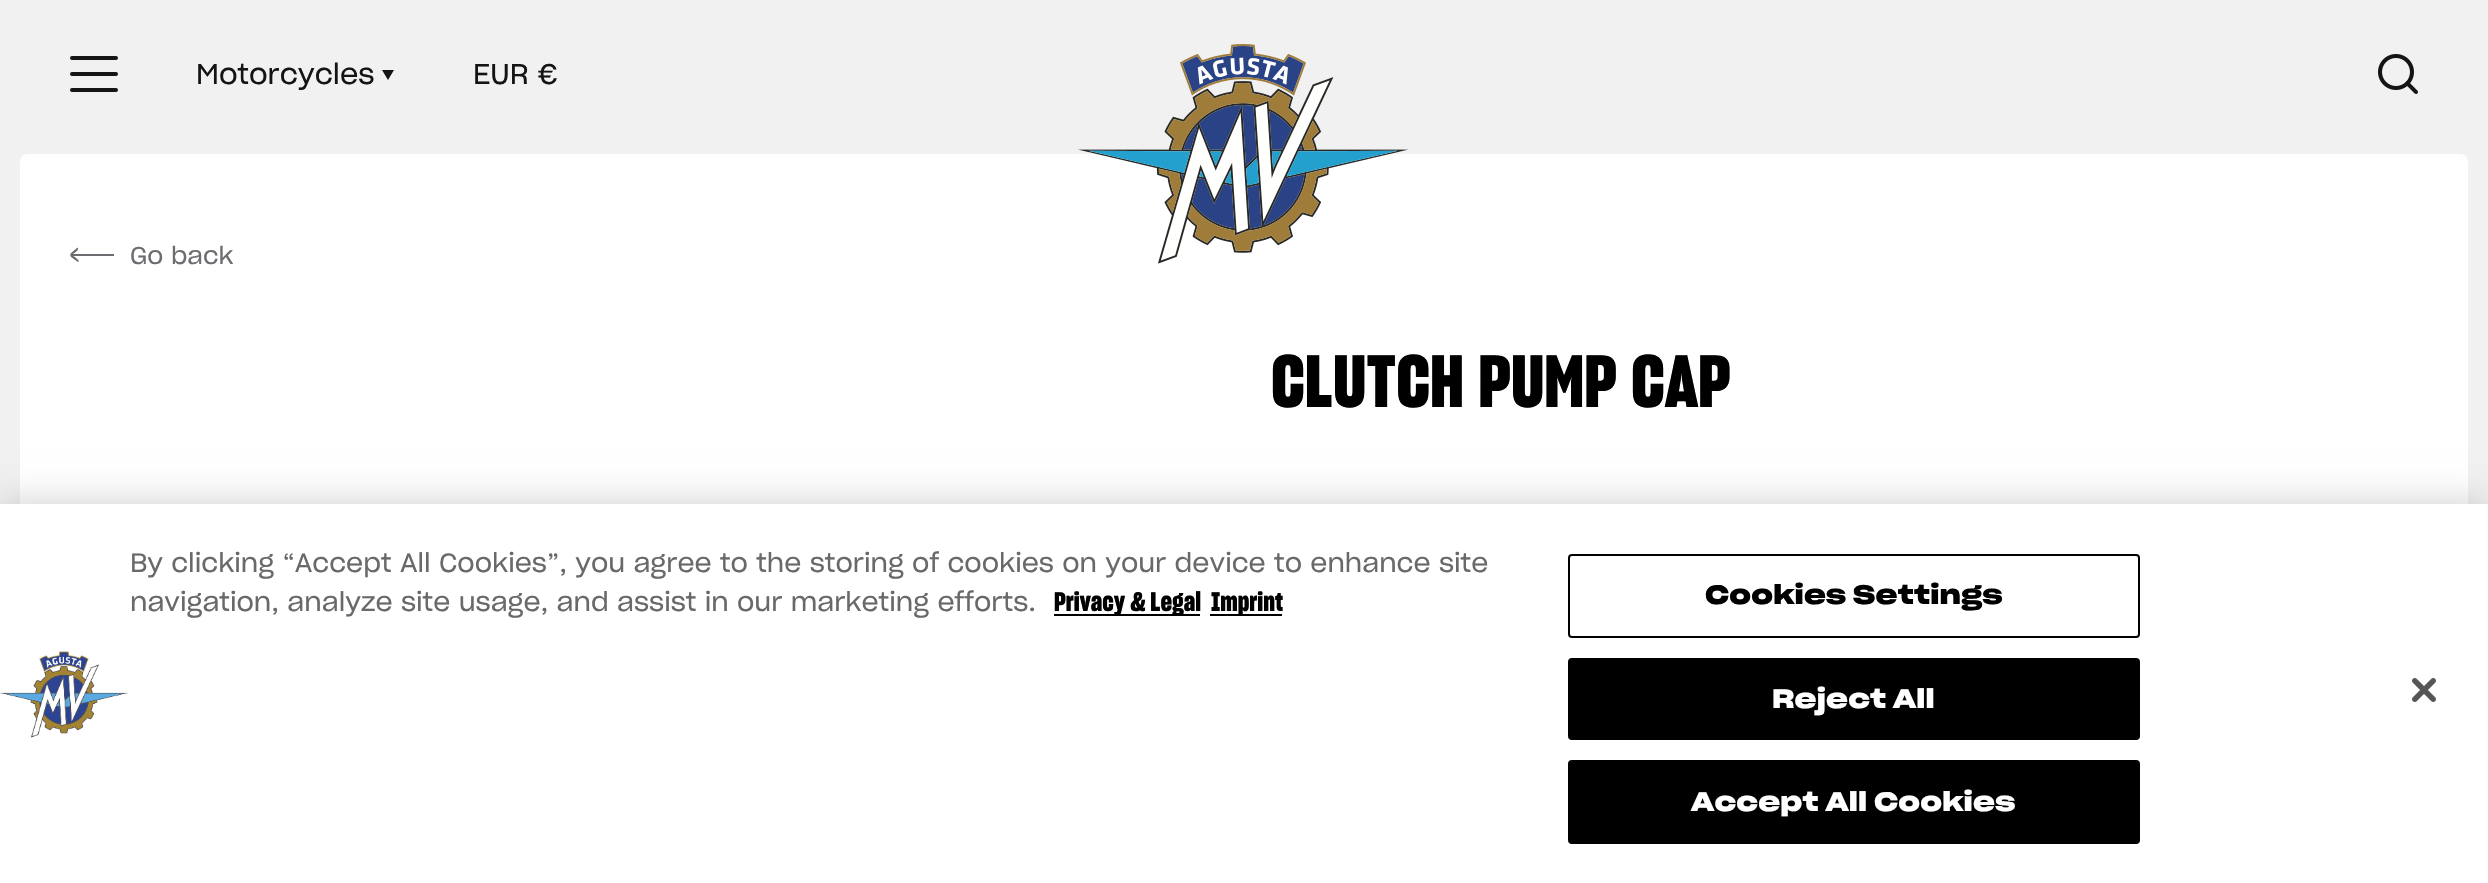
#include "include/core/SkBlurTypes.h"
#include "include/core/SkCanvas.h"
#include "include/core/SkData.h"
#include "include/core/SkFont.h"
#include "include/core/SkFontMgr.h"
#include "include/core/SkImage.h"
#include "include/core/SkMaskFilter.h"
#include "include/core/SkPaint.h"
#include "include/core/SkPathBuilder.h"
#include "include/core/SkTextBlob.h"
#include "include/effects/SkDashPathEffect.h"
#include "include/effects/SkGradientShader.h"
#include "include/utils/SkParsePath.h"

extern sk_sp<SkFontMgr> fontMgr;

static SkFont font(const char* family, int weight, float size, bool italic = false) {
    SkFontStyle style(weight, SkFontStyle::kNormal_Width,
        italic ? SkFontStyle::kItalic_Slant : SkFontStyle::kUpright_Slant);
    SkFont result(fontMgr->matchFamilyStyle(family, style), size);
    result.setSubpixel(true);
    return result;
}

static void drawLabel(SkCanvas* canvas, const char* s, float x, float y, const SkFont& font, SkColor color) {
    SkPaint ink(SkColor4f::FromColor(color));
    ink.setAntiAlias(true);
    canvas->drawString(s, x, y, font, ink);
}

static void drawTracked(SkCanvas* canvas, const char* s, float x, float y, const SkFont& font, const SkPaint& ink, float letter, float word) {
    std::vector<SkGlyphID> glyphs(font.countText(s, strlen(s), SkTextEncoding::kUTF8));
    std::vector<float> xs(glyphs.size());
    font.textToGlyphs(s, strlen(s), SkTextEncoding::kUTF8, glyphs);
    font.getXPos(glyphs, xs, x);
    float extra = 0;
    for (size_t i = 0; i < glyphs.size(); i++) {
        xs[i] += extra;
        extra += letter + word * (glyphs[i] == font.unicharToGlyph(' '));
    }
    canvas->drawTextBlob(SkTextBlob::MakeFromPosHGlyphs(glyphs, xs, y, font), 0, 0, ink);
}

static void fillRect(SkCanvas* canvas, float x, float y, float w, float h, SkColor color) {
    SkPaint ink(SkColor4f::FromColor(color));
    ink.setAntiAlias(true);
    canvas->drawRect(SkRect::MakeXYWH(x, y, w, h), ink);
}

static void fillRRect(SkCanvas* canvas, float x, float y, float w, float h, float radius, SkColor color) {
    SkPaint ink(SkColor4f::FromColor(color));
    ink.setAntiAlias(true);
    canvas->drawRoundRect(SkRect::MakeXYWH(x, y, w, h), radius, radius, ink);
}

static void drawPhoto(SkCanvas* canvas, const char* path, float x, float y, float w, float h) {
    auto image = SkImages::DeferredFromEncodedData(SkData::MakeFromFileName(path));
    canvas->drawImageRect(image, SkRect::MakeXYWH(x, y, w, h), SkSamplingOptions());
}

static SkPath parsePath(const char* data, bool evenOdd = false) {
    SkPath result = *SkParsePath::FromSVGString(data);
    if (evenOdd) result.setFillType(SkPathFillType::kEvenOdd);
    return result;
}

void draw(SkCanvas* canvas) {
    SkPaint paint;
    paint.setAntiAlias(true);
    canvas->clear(0xFFF1F1F1);
    fillRRect(canvas, 70, 56, 48, 4, 2, 0xFF131415);
    fillRRect(canvas, 70, 72, 48, 4, 2, 0xFF131415);
    fillRRect(canvas, 70, 88, 48, 4, 2, 0xFF131415);
    SkFont font1 = font("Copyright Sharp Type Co", 400, 28);
    drawLabel(canvas, "Motorcycles", 196, 84, font1, 0xFF131415);
    paint.setColor(0xFF131415);
    canvas->drawPath(parsePath("M382 70H394L388 80Z"), paint);
    drawLabel(canvas, "EUR €", 473, 84, font1, 0xFF131415);
    fillRRect(canvas, 20, 154, 2448, 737, 8, 0xFFFFFFFF);
    drawPhoto(canvas, "assets/img1.png", 1078, 44, 330, 220);
    drawPhoto(canvas, "assets/img2.png", 2378, 54, 40, 40);
    paint.setColor(0xFF6D6C70);
    canvas->drawPath(parsePath("M77 248L71 253C70 255 70 255 71 257L78 262C81 261 74 256 73 256H114V254H73L77 251C79 248 78 247 77 248Z", true), paint);
    SkFont font2 = font("Copyright Sharp Type Co", 400, 24);
    drawLabel(canvas, "Go back", 130, 264, font2, 0xFF6D6C70);
    SkFont font3 = font("Copyright Sharp Type Co", 700, 72);
    drawLabel(canvas, "CLUTCH PUMP CAP", 1271, 407, font3, 0xFF000000);
    paint.setColor(0x33000000);
    paint.setMaskFilter(SkMaskFilter::MakeBlur(kNormal_SkBlurStyle, 18));
    canvas->drawRect(SkRect::MakeXYWH(0, 504, 2488, 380), paint);
    paint.setMaskFilter(nullptr);
    fillRect(canvas, 0, 504, 2488, 379, 0xFFFFFFFF);
    SkFont font4 = font("Copyright Sharp Type Co", 400, 26.02f);
    drawLabel(canvas, "By clicking “Accept All Cookies”, you agree to the storing of cookies on your device to enhance site", 130, 572, font4, 0xFF696969);
    drawLabel(canvas, "navigation, analyze site usage, and assist in our marketing efforts.", 130, 611, font4, 0xFF696969);
    fillRect(canvas, 1054, 614, 146, 2, 0xFF000000);
    SkFont font5 = font("Copyright Sharp Type Co", 700, 26.02f);
    drawLabel(canvas, "Privacy & Legal", 1054, 611, font5, 0xFF000000);
    fillRect(canvas, 1210, 614, 72, 2, 0xFF000000);
    drawLabel(canvas, "Imprint", 1211, 611, font5, 0xFF000000);
    drawPhoto(canvas, "assets/img3.png", 0, 651, 128, 87);
    paint.setStroke(true);
    paint.setStrokeWidth(2);
    paint.setColor(0xFF000000);
    canvas->drawRoundRect(SkRect::MakeXYWH(1569, 555, 570, 82), 3, 3, paint);
    SkFont font6 = font("Copyright Sharp Type Co", 600, 26.02f);
    paint.setStroke(false);
    drawTracked(canvas, "Cookies Settings", 1705, 604, font6, paint, 0.25f, 0);
    canvas->drawRoundRect(SkRect::MakeXYWH(1569, 659, 570, 80), 3, 3, paint);
    paint.setStroke(true);
    canvas->drawRoundRect(SkRect::MakeXYWH(1569, 659, 570, 80), 3, 3, paint);
    paint.setStroke(false);
    paint.setColor(0xFFFFFFFF);
    drawTracked(canvas, "Reject All", 1772, 708, font6, paint, 0.25f, 0);
    paint.setColor(0xFF000000);
    canvas->drawRoundRect(SkRect::MakeXYWH(1569, 761, 570, 82), 3, 3, paint);
    paint.setStroke(true);
    canvas->drawRoundRect(SkRect::MakeXYWH(1569, 761, 570, 82), 3, 3, paint);
    paint.setStroke(false);
    paint.setColor(0xFFFFFFFF);
    drawTracked(canvas, "Accept All Cookies", 1691, 811, font6, paint, 0.25f, 0);
    drawPhoto(canvas, "assets/img4.png", 2412, 678, 24, 24);
}
